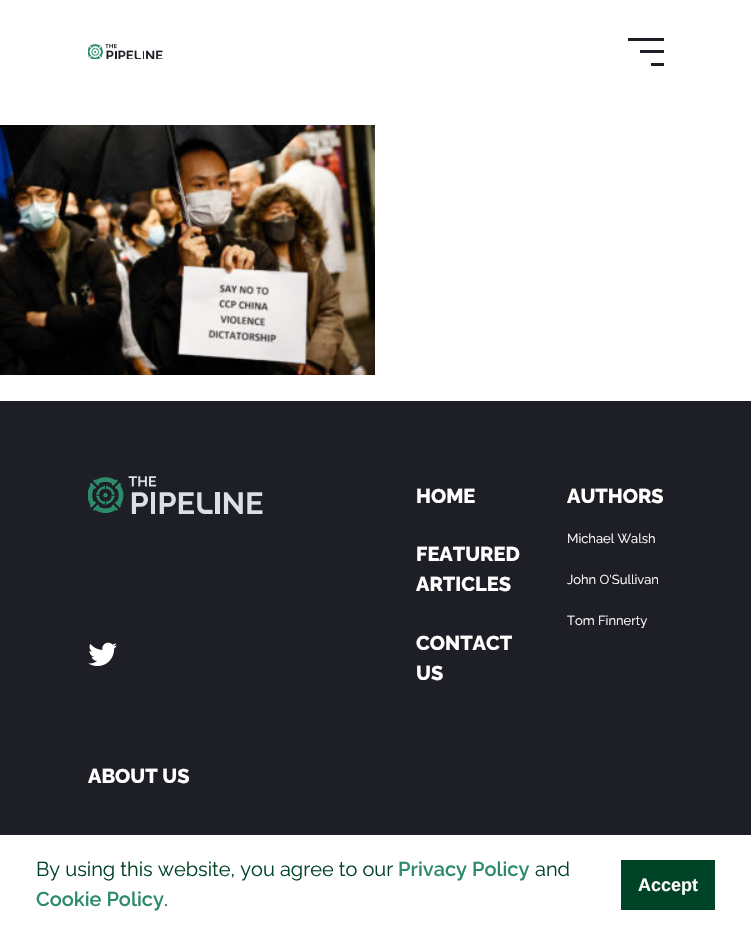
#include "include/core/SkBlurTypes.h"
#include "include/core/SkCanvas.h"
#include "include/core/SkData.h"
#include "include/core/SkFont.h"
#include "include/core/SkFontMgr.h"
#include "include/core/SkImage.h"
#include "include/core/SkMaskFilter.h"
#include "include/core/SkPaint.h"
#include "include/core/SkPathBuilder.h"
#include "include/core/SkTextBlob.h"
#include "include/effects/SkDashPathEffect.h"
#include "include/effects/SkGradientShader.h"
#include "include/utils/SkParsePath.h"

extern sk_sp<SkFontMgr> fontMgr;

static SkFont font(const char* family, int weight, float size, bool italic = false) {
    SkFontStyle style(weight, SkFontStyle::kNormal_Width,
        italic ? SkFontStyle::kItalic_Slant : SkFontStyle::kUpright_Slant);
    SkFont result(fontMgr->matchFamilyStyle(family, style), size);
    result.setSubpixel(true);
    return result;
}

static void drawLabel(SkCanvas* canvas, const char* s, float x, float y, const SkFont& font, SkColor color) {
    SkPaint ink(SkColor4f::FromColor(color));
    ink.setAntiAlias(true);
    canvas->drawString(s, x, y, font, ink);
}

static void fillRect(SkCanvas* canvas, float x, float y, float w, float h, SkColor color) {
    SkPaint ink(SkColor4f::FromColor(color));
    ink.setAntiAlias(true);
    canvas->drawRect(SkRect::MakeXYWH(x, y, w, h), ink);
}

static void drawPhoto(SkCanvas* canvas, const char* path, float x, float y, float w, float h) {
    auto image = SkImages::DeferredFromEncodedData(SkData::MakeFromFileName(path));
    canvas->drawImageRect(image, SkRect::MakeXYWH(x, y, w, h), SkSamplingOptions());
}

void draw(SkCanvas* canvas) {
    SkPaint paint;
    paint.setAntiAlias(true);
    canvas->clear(0xFFFFFFFF);
    drawPhoto(canvas, "assets/img1.png", 88, 44, 75, 15);
    fillRect(canvas, 628, 38, 36, 3, 0xFF1E1F26);
    fillRect(canvas, 640, 50, 24, 3, 0xFF1E1F26);
    fillRect(canvas, 651, 63, 13, 3, 0xFF1E1F26);
    drawPhoto(canvas, "assets/img2.png", 0, 125, 375, 250);
    fillRect(canvas, 0, 401, 751, 434, 0xFF1E1F26);
    drawPhoto(canvas, "assets/img3.png", 88, 476, 175, 38);
    drawPhoto(canvas, "assets/img4.png", 88, 642, 29, 24);
    SkFont font1 = font("Raleway", 800, 20);
    drawLabel(canvas, "HOME", 416, 503, font1, 0xFFFFFFFF);
    drawLabel(canvas, "FEATURED", 416, 561, font1, 0xFFFFFFFF);
    drawLabel(canvas, "ARTICLES", 416, 591, font1, 0xFFFFFFFF);
    drawLabel(canvas, "CONTACT", 416, 650, font1, 0xFFFFFFFF);
    drawLabel(canvas, "US", 416, 680, font1, 0xFFFFFFFF);
    drawLabel(canvas, "AUTHORS", 567, 503, font1, 0xFFFFFFFF);
    SkFont font2 = font("Raleway", 400, 13);
    drawLabel(canvas, "Michael Walsh", 567, 543, font2, 0xFFFFFFFF);
    drawLabel(canvas, "John O'Sullivan", 567, 584, font2, 0xFFFFFFFF);
    drawLabel(canvas, "Tom Finnerty", 567, 625, font2, 0xFFFFFFFF);
    drawLabel(canvas, "ABOUT US", 88, 783, font1, 0xFFFFFFFF);
    SkFont font3 = font("Raleway", 400, 20);
    drawLabel(canvas, "By using this website, you agree to our", 36, 876, font3, 0xFF014326);
    SkFont font4 = font("Raleway", 600, 20);
    drawLabel(canvas, "Privacy Policy", 398, 876, font4, 0xFF2D8B6B);
    drawLabel(canvas, "and", 535, 876, font3, 0xFF014326);
    drawLabel(canvas, "Cookie Policy", 36, 906, font4, 0xFF2D8B6B);
    drawLabel(canvas, ".", 164, 906, font3, 0xFF014326);
    fillRect(canvas, 621, 860, 94, 50, 0xFF014326);
    SkFont font5 = font("Liberation Sans", 700, 18);
    drawLabel(canvas, "Accept", 638, 891, font5, 0xFFFFFFFF);
}
